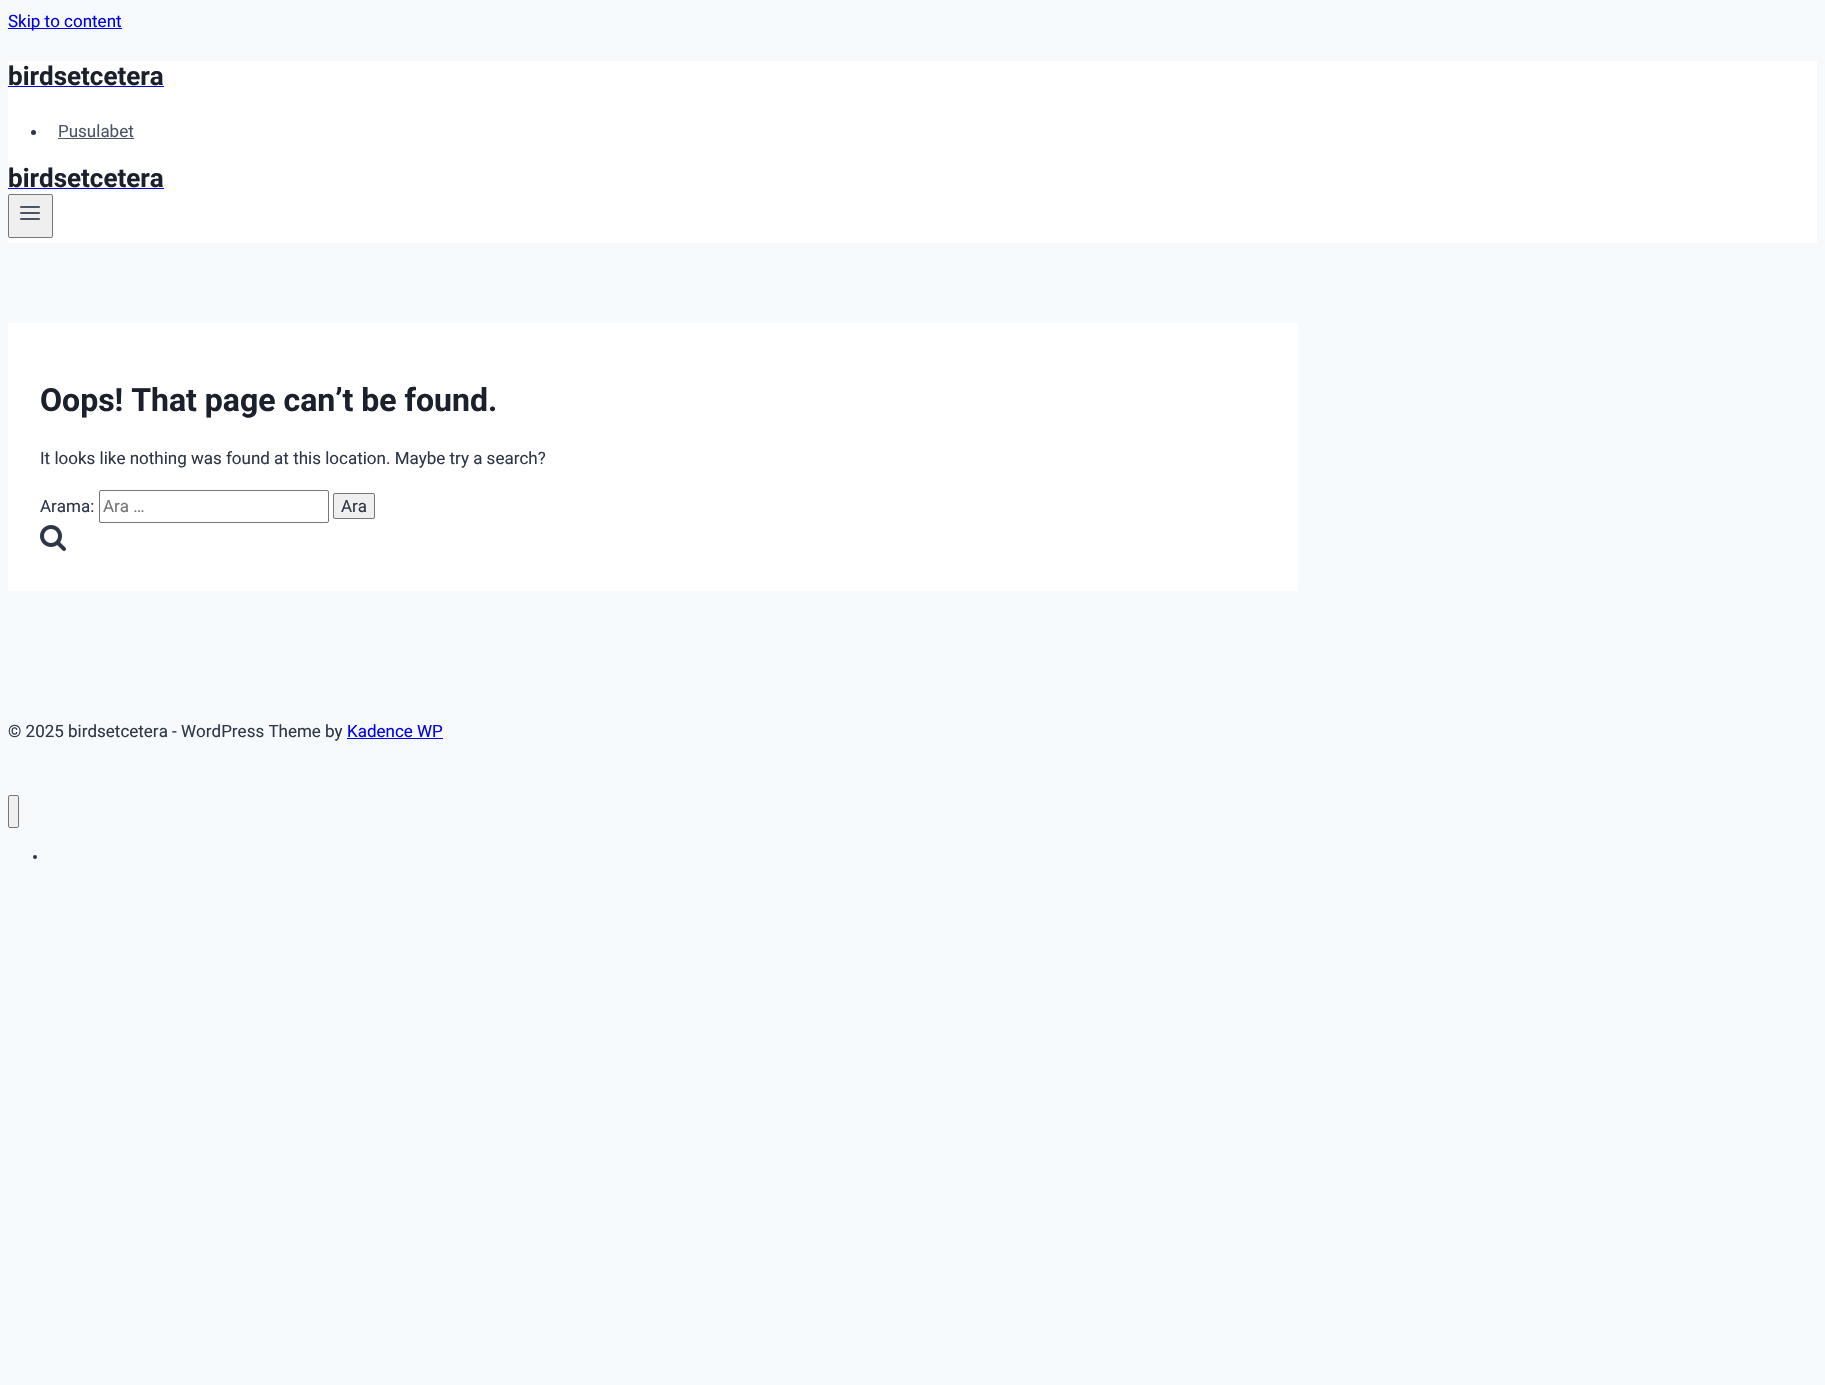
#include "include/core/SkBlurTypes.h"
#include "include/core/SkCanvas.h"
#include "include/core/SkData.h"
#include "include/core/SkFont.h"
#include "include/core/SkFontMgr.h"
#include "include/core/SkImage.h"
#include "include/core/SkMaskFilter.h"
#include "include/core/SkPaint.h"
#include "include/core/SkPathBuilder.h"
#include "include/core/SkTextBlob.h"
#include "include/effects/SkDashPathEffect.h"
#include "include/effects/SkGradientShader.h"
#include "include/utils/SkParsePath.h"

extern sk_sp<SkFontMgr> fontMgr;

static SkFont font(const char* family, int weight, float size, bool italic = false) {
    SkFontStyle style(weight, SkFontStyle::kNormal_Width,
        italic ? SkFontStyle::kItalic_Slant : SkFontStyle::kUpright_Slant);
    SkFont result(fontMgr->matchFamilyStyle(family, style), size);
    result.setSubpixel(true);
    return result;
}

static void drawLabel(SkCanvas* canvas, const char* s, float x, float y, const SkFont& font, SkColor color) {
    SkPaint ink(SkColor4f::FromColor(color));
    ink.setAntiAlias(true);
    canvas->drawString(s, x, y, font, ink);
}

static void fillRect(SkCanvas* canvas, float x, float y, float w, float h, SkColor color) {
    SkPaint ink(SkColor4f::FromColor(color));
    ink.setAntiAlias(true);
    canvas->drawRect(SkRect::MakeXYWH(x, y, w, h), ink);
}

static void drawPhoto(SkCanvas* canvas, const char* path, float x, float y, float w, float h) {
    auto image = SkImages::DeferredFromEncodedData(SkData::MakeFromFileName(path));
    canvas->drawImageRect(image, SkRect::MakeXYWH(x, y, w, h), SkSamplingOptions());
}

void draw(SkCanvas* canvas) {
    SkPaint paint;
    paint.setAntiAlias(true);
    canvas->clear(0xFFF7FAFC);
    fillRect(canvas, 8, 28, 114, 1, 0xFF0000EE);
    SkFont font1 = font("Roboto", 400, 17);
    drawLabel(canvas, "Skip to content", 8, 27, font1, 0xFF0000EE);
    fillRect(canvas, 8, 61, 1809, 182, 0xFFFFFFFF);
    SkFont font2 = font("Roboto", 700, 26);
    drawLabel(canvas, "birdsetcetera", 8, 85, font2, 0xFF1A202C);
    fillRect(canvas, 8, 86, 156, 1, 0xFF0000EE);
    paint.setColor(0xFF2D3748);
    canvas->drawCircle(33.5f, 132.5f, 2.5f, paint);
    drawLabel(canvas, "Pusulabet", 58, 137, font1, 0xFF4A5568);
    fillRect(canvas, 58, 138, 76, 1, 0xFF4A5568);
    drawLabel(canvas, "birdsetcetera", 8, 187, font2, 0xFF1A202C);
    fillRect(canvas, 8, 188, 156, 1, 0xFF0000EE);
    paint.setColor(0xFFEFEFEF);
    canvas->drawRoundRect(SkRect::MakeXYWH(8.5f, 194.5f, 44, 43), 1.5f, 1.5f, paint);
    paint.setStroke(true);
    paint.setStrokeWidth(1);
    paint.setColor(0xFF767676);
    canvas->drawRoundRect(SkRect::MakeXYWH(8.5f, 194.5f, 44, 43), 1.5f, 1.5f, paint);
    drawPhoto(canvas, "assets/img1.png", 20, 206, 20, 14);
    fillRect(canvas, 8, 323, 1290, 268, 0xFFFFFFFF);
    SkFont font3 = font("Roboto", 700, 32);
    drawLabel(canvas, "Oops! That page can’t be found.", 40, 411, font3, 0xFF1A202C);
    drawLabel(canvas, "It looks like nothing was found at this location. Maybe try a search?", 40, 464, font1, 0xFF2D3748);
    drawLabel(canvas, "Arama:", 40, 512, font1, 0xFF2D3748);
    canvas->drawRoundRect(SkRect::MakeXYWH(99.5f, 490.5f, 229, 32), 1.5f, 1.5f, paint);
    drawLabel(canvas, "Ara …", 103, 512, font1, 0xFF757575);
    paint.setStroke(false);
    paint.setColor(0xFFEFEFEF);
    canvas->drawRoundRect(SkRect::MakeXYWH(333.5f, 493.5f, 41, 25), 1.5f, 1.5f, paint);
    paint.setStroke(true);
    paint.setColor(0xFF767676);
    canvas->drawRoundRect(SkRect::MakeXYWH(333.5f, 493.5f, 41, 25), 1.5f, 1.5f, paint);
    drawLabel(canvas, "Ara", 341, 512, font1, 0xFF2D3748);
    drawPhoto(canvas, "assets/img2.png", 40, 525, 26, 26);
    drawLabel(canvas, "© 2025 birdsetcetera - WordPress Theme by", 8, 737, font1, 0xFF2D3748);
    drawLabel(canvas, "Kadence WP", 347, 737, font1, 0xFF0000EE);
    fillRect(canvas, 347, 738, 96, 1, 0xFF0000EE);
    paint.setStroke(false);
    paint.setColor(0xFFEFEFEF);
    canvas->drawRoundRect(SkRect::MakeXYWH(8.5f, 795.5f, 10, 32), 1.5f, 1.5f, paint);
    paint.setStroke(true);
    paint.setColor(0xFF767676);
    canvas->drawRoundRect(SkRect::MakeXYWH(8.5f, 795.5f, 10, 32), 1.5f, 1.5f, paint);
    paint.setStroke(false);
    paint.setColor(0xFF2D3748);
    canvas->drawCircle(35, 857, 2, paint);
}
